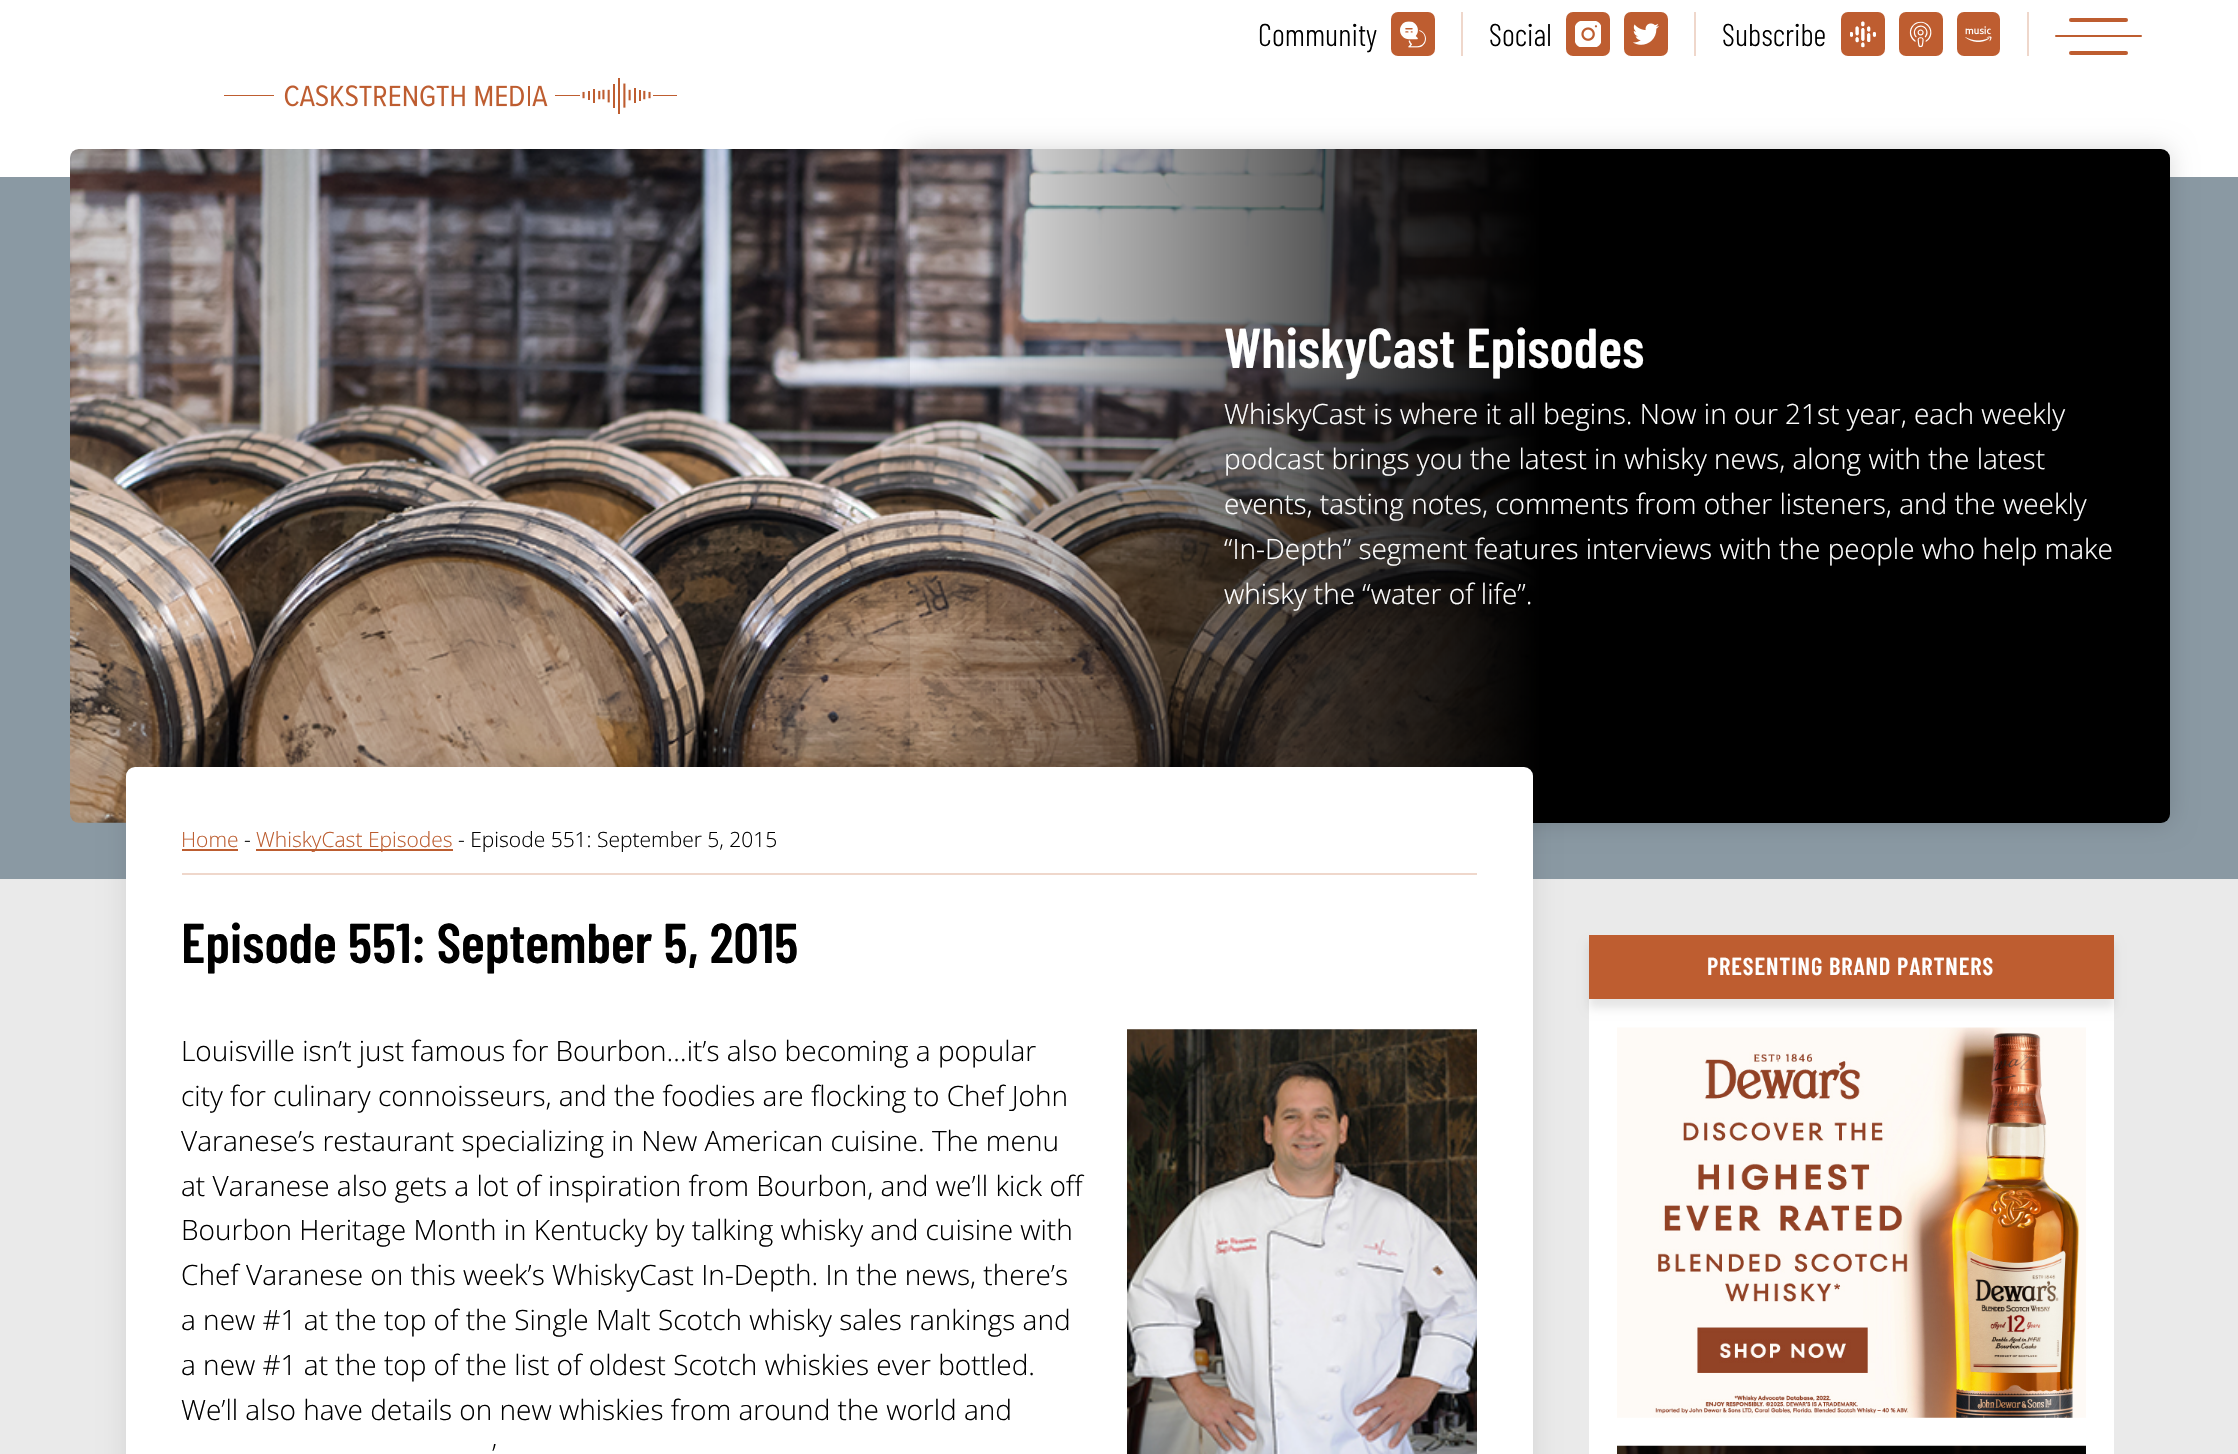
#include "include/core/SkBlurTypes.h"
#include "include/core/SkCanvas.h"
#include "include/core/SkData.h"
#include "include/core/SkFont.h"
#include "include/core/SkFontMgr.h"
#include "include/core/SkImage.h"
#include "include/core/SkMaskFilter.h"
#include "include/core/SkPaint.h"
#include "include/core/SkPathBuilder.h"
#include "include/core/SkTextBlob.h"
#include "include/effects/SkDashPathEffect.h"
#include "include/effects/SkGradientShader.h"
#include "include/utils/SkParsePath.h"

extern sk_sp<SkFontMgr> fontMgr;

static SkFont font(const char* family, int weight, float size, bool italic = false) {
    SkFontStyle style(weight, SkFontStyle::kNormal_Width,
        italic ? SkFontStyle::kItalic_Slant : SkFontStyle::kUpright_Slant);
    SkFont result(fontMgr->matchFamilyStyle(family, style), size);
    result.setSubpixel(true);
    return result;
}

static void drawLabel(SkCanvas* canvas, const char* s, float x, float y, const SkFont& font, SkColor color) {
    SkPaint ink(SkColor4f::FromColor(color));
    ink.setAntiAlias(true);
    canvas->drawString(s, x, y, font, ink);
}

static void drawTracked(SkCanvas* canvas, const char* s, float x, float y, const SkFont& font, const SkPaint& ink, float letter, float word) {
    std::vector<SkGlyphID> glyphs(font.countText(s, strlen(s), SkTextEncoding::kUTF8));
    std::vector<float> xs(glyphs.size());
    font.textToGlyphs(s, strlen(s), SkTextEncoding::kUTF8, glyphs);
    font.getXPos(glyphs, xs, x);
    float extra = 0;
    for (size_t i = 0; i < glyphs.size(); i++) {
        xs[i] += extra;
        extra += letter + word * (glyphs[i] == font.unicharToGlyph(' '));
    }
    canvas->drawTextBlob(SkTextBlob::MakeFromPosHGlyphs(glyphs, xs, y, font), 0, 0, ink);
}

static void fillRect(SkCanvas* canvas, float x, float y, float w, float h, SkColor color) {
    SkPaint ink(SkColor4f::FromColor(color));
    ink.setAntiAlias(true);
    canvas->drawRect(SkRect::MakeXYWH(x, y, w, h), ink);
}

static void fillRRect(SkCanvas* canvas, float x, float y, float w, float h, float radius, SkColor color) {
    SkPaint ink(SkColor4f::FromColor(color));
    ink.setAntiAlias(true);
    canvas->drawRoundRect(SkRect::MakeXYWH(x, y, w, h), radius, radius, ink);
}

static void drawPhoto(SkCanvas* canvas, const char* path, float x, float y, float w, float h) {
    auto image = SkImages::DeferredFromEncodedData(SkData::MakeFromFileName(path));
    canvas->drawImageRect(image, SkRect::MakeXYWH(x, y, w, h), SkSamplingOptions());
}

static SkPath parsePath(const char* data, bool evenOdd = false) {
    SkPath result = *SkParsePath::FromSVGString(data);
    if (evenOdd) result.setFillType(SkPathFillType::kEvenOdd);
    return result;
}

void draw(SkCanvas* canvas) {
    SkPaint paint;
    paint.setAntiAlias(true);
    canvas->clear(0xFFFFFFFF);
    fillRect(canvas, 1461, 12, 2, 44, 0xFFEFD7CB);
    SkFont font1 = font("Barlow Condensed", 300, 31.5f);
    drawLabel(canvas, "Community", 1258, 46, font1, 0xFF000000);
    fillRRect(canvas, 1391, 12, 44, 44, 7, 0xFFBE5D30);
    drawPhoto(canvas, "assets/img1.png", 1400, 21, 26, 27);
    fillRect(canvas, 1694, 12, 2, 44, 0xFFEFD7CB);
    drawLabel(canvas, "Social", 1489, 46, font1, 0xFF000000);
    fillRRect(canvas, 1566, 12, 44, 44, 7, 0xFFBE5D30);
    drawPhoto(canvas, "assets/img2.png", 1575, 21, 26, 26);
    fillRRect(canvas, 1624, 12, 44, 44, 7, 0xFFBE5D30);
    drawPhoto(canvas, "assets/img3.png", 1633, 23, 26, 22);
    fillRect(canvas, 2027, 12, 2, 44, 0xFFEFD7CB);
    drawLabel(canvas, "Subscribe", 1722, 46, font1, 0xFF000000);
    fillRRect(canvas, 1841, 12, 44, 44, 7, 0xFFBE5D30);
    drawPhoto(canvas, "assets/img4.png", 1850, 21, 26, 27);
    fillRRect(canvas, 1899, 12, 44, 44, 7, 0xFFBE5D30);
    drawPhoto(canvas, "assets/img5.png", 1909, 21, 23, 27);
    fillRRect(canvas, 1957, 12, 43, 44, 7, 0xFFBE5D30);
    drawPhoto(canvas, "assets/img6.png", 1965, 26, 27, 16);
    fillRRect(canvas, 2069, 18, 59, 4, 2, 0xFFBE5D30);
    fillRRect(canvas, 2055, 35, 87, 2, 1, 0xFFBE5D30);
    fillRRect(canvas, 2069, 51, 59, 4, 2, 0xFFBE5D30);
    drawPhoto(canvas, "assets/img7.png", 224, 78, 453, 36);
    fillRect(canvas, 0, 879, 2238, 575, 0xFFEAEAEA);
    fillRect(canvas, 0, 177, 2238, 702, 0xFF8A99A3);
    drawPhoto(canvas, "assets/img8.png", 70, 149, 1466, 674);
    canvas->save();
    canvas->clipPath(parsePath("M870 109H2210V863H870ZM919 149H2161C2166 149 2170 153 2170 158V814C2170 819 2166 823 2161 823H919C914 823 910 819 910 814V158C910 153 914 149 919 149Z", true), true);
    paint.setColor(0x26000000);
    paint.setMaskFilter(SkMaskFilter::MakeBlur(kNormal_SkBlurStyle, 13));
    canvas->drawRoundRect(SkRect::MakeXYWH(910, 149, 1260, 674), 9, 9, paint);
    paint.setMaskFilter(nullptr);
    canvas->restore();
    {
        const SkColor colors[] = {0x00000000, 0xFF000000};
        const float stops[] = {0, 0.5f};
        const SkPoint ends[] = {{910, 486}, {2170, 486}};
        paint.setShader(SkGradientShader::MakeLinear(ends, colors, stops, 2, SkTileMode::kClamp));
        paint.setAlpha(255);
    }
    canvas->drawRoundRect(SkRect::MakeXYWH(910, 149, 1260, 674), 9, 9, paint);
    SkFont font2 = font("Barlow Condensed", 600, 56);
    drawLabel(canvas, "WhiskyCast Episodes", 1224, 368, font2, 0xFFFFFFFF);
    SkFont font3 = font("Open Sans", 300, 28);
    drawLabel(canvas, "WhiskyCast is where it all begins. Now in our 21st year, each weekly", 1224, 424, font3, 0xFFFFFFFF);
    drawLabel(canvas, "podcast brings you the latest in whisky news, along with the latest", 1224, 469, font3, 0xFFFFFFFF);
    drawLabel(canvas, "events, tasting notes, comments from other listeners, and the weekly", 1224, 514, font3, 0xFFFFFFFF);
    drawLabel(canvas, "“In-Depth” segment features interviews with the people who help make", 1224, 559, font3, 0xFFFFFFFF);
    drawLabel(canvas, "whisky the “water of life”.", 1224, 604, font3, 0xFFFFFFFF);
    paint.setShader(nullptr);
    paint.setColor(0x1A000000);
    paint.setMaskFilter(SkMaskFilter::MakeBlur(kNormal_SkBlurStyle, 13));
    canvas->drawRoundRect(SkRect::MakeXYWH(126, 767, 1407, 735), 9, 9, paint);
    paint.setMaskFilter(nullptr);
    fillRRect(canvas, 126, 767, 1407, 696, 9, 0xFFFFFFFF);
    fillRect(canvas, 182, 873, 1295, 2, 0xFFEFD7CB);
    SkFont font4 = font("Open Sans", 300, 21);
    drawLabel(canvas, "Home", 181, 847, font4, 0xFFBC5D30);
    fillRect(canvas, 182, 849, 56, 2, 0xFFBC5D30);
    drawLabel(canvas, "-", 244, 847, font4, 0xFF000000);
    fillRect(canvas, 256, 849, 197, 2, 0xFFBC5D30);
    drawLabel(canvas, "WhiskyCast Episodes", 256, 847, font4, 0xFFBC5D30);
    drawLabel(canvas, "- Episode 551: September 5, 2015", 458, 847, font4, 0xFF000000);
    drawLabel(canvas, "Episode 551: September 5, 2015", 181, 963, font2, 0xFF000000);
    drawLabel(canvas, "Louisville isn’t just famous for Bourbon…it’s also becoming a popular", 181, 1061, font3, 0xFF000000);
    drawPhoto(canvas, "assets/img9.png", 1127, 1029, 350, 425);
    drawLabel(canvas, "city for culinary connoisseurs, and the foodies are flocking to Chef John", 181, 1106, font3, 0xFF000000);
    drawLabel(canvas, "Varanese’s restaurant specializing in New American cuisine. The menu", 181, 1151, font3, 0xFF000000);
    drawLabel(canvas, "at Varanese also gets a lot of inspiration from Bourbon, and we’ll kick off", 181, 1196, font3, 0xFF000000);
    drawLabel(canvas, "Bourbon Heritage Month in Kentucky by talking whisky and cuisine with", 181, 1240, font3, 0xFF000000);
    drawLabel(canvas, "Chef Varanese on this week’s WhiskyCast In-Depth. In the news, there’s", 181, 1285, font3, 0xFF000000);
    drawLabel(canvas, "a new #1 at the top of the Single Malt Scotch whisky sales rankings and", 181, 1330, font3, 0xFF000000);
    drawLabel(canvas, "a new #1 at the top of the list of oldest Scotch whiskies ever bottled.", 181, 1375, font3, 0xFF000000);
    drawLabel(canvas, "We’ll also have details on new whiskies from around the world and", 181, 1420, font3, 0xFF000000);
    drawLabel(canvas, "’", 492, 1464, font3, 0xFF000000);
    fillRect(canvas, 1589, 999, 525, 455, 0xFFFFFFFF);
    paint.setMaskFilter(SkMaskFilter::MakeBlur(kNormal_SkBlurStyle, 4.5f));
    canvas->drawRect(SkRect::MakeXYWH(1589, 943, 525, 65), paint);
    paint.setMaskFilter(nullptr);
    fillRect(canvas, 1589, 935, 525, 64, 0xFFBE5D30);
    SkFont font5 = font("Barlow Condensed", 600, 24.5f);
    paint.setColor(0xFFFFFFFF);
    drawTracked(canvas, "PRESENTING BRAND PARTNERS", 1707, 975, font5, paint, 0.9f, 0);
    drawPhoto(canvas, "assets/img10.png", 1617, 1027, 469, 391);
    drawPhoto(canvas, "assets/img11.png", 1617, 1445, 469, 9);
}
